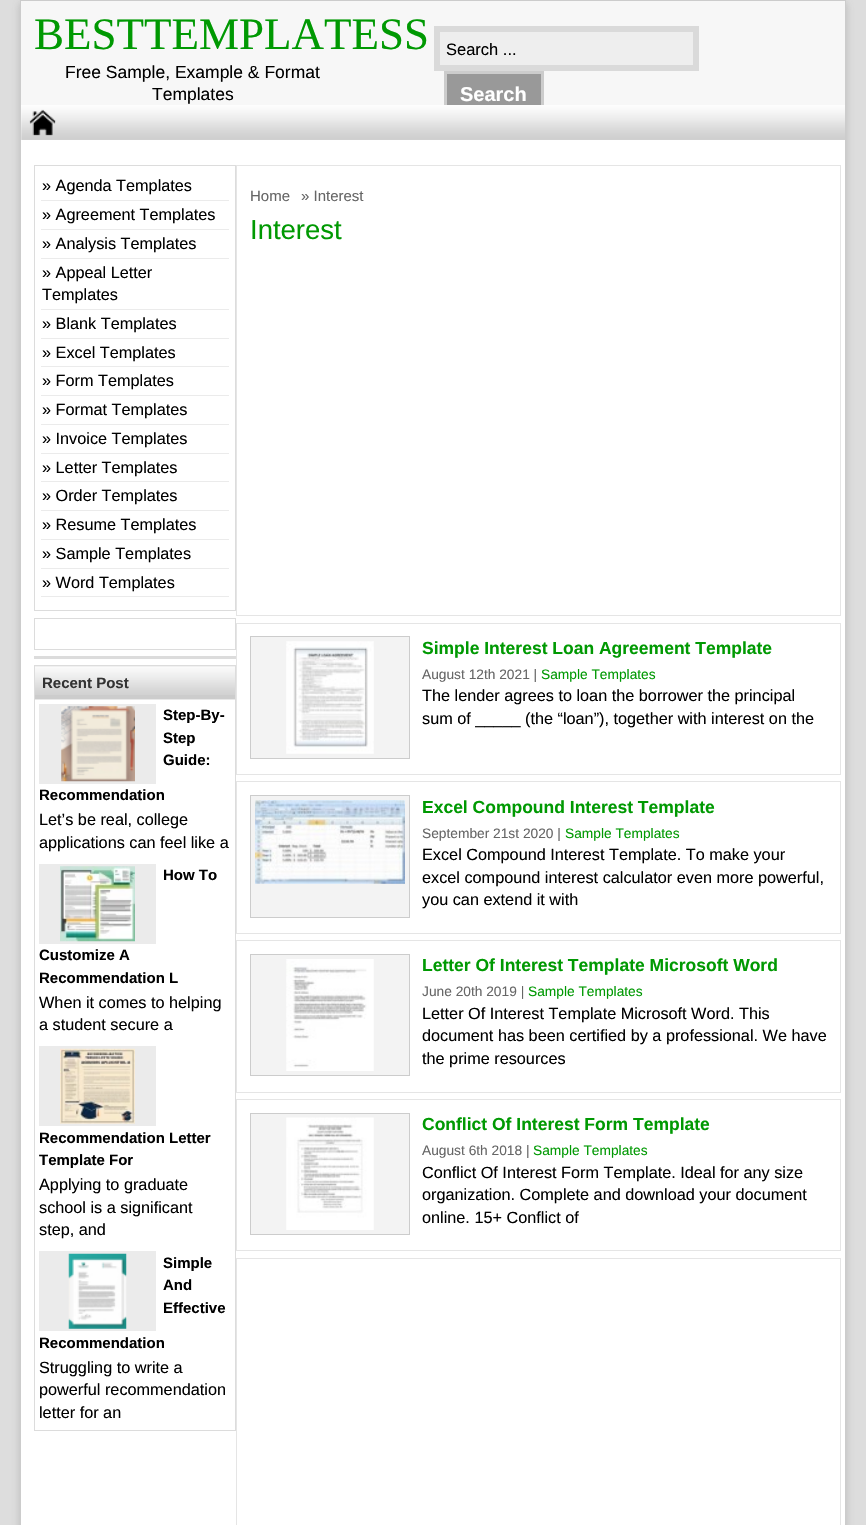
#include "include/core/SkBlurTypes.h"
#include "include/core/SkCanvas.h"
#include "include/core/SkData.h"
#include "include/core/SkFont.h"
#include "include/core/SkFontMgr.h"
#include "include/core/SkImage.h"
#include "include/core/SkMaskFilter.h"
#include "include/core/SkPaint.h"
#include "include/core/SkPathBuilder.h"
#include "include/core/SkTextBlob.h"
#include "include/effects/SkDashPathEffect.h"
#include "include/effects/SkGradientShader.h"
#include "include/utils/SkParsePath.h"

extern sk_sp<SkFontMgr> fontMgr;

static SkFont font(const char* family, int weight, float size, bool italic = false) {
    SkFontStyle style(weight, SkFontStyle::kNormal_Width,
        italic ? SkFontStyle::kItalic_Slant : SkFontStyle::kUpright_Slant);
    SkFont result(fontMgr->matchFamilyStyle(family, style), size);
    result.setSubpixel(true);
    return result;
}

static void drawLabel(SkCanvas* canvas, const char* s, float x, float y, const SkFont& font, SkColor color) {
    SkPaint ink(SkColor4f::FromColor(color));
    ink.setAntiAlias(true);
    canvas->drawString(s, x, y, font, ink);
}

static void fillRect(SkCanvas* canvas, float x, float y, float w, float h, SkColor color) {
    SkPaint ink(SkColor4f::FromColor(color));
    ink.setAntiAlias(true);
    canvas->drawRect(SkRect::MakeXYWH(x, y, w, h), ink);
}

static void drawPhoto(SkCanvas* canvas, const char* path, float x, float y, float w, float h) {
    auto image = SkImages::DeferredFromEncodedData(SkData::MakeFromFileName(path));
    canvas->drawImageRect(image, SkRect::MakeXYWH(x, y, w, h), SkSamplingOptions());
}

void draw(SkCanvas* canvas) {
    SkPaint paint;
    paint.setAntiAlias(true);
    canvas->clear(0xFFDDDDDD);
    paint.setColor(0x4D646464);
    paint.setMaskFilter(SkMaskFilter::MakeBlur(kNormal_SkBlurStyle, 4));
    canvas->drawRect(SkRect::MakeXYWH(20, 3, 826, 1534), paint);
    paint.setMaskFilter(nullptr);
    fillRect(canvas, 21, 105, 824, 1420, 0xFFFFFFFF);
    paint.setStroke(true);
    paint.setStrokeWidth(1);
    paint.setColor(0xFFCCCCCC);
    canvas->drawRect(SkRect::MakeXYWH(20.5f, 0.5f, 825, 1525), paint);
    fillRect(canvas, 21, 1, 824, 104, 0xFFF7F7F7);
    SkFont font1 = font("Liberation Serif", 400, 45);
    drawLabel(canvas, "BESTTEMPLATESS", 34, 49, font1, 0xFF009902);
    SkFont font2 = font("Liberation Sans", 400, 17.5f);
    drawLabel(canvas, "Free Sample, Example & Format", 65, 78, font2, 0xFF000000);
    drawLabel(canvas, "Templates", 152, 100, font2, 0xFF000000);
    paint.setStroke(false);
    paint.setColor(0xFFEEEEEE);
    canvas->drawRect(SkRect::MakeXYWH(437, 29, 259, 39), paint);
    paint.setStroke(true);
    paint.setStrokeWidth(6);
    paint.setColor(0xFFDADADA);
    canvas->drawRect(SkRect::MakeXYWH(437, 29, 259, 39), paint);
    SkFont font3 = font("Liberation Sans", 400, 16.5f);
    drawLabel(canvas, "Search ...", 446, 55, font3, 0xFF000000);
    fillRect(canvas, 447, 74, 94, 31, 0xFF999999);
    drawPhoto(canvas, "assets/img1.png", 21, 105, 824, 35);
    canvas->save();
    canvas->clipRect(SkRect::MakeXYWH(21, 1, 824, 104));
    paint.setStrokeWidth(3);
    paint.setColor(0xFFCCCCCC);
    canvas->drawRect(SkRect::MakeXYWH(445.5f, 72.5f, 97, 44), paint);
    canvas->restore();
    SkFont font4 = font("Liberation Sans", 700, 20);
    drawLabel(canvas, "Search", 460, 101, font4, 0xFFFFFFFF);
    drawPhoto(canvas, "assets/img2.png", 29, 109, 27, 27);
    paint.setStrokeWidth(1);
    paint.setColor(0xFFDCDCDC);
    canvas->drawRect(SkRect::MakeXYWH(34.5f, 165.5f, 201, 445), paint);
    fillRect(canvas, 41, 200, 188, 1, 0xFFEBEBEB);
    SkFont font5 = font("Liberation Sans", 400, 16.25f);
    drawLabel(canvas, "» Agenda Templates", 42, 191, font5, 0xFF000000);
    fillRect(canvas, 41, 229, 188, 1, 0xFFEBEBEB);
    drawLabel(canvas, "» Agreement Templates", 42, 220, font5, 0xFF000000);
    fillRect(canvas, 41, 258, 188, 1, 0xFFEBEBEB);
    drawLabel(canvas, "» Analysis Templates", 42, 249, font5, 0xFF000000);
    fillRect(canvas, 41, 309, 188, 1, 0xFFEBEBEB);
    drawLabel(canvas, "» Appeal Letter", 42, 278, font5, 0xFF000000);
    drawLabel(canvas, "Templates", 42, 300, font5, 0xFF000000);
    fillRect(canvas, 41, 338, 188, 1, 0xFFEBEBEB);
    drawLabel(canvas, "» Blank Templates", 42, 329, font5, 0xFF000000);
    fillRect(canvas, 41, 366, 188, 1, 0xFFEBEBEB);
    drawLabel(canvas, "» Excel Templates", 42, 358, font5, 0xFF000000);
    fillRect(canvas, 41, 395, 188, 1, 0xFFEBEBEB);
    drawLabel(canvas, "» Form Templates", 42, 386, font5, 0xFF000000);
    fillRect(canvas, 41, 424, 188, 1, 0xFFEBEBEB);
    drawLabel(canvas, "» Format Templates", 42, 415, font5, 0xFF000000);
    fillRect(canvas, 41, 453, 188, 1, 0xFFEBEBEB);
    drawLabel(canvas, "» Invoice Templates", 42, 444, font5, 0xFF000000);
    fillRect(canvas, 41, 481, 188, 1, 0xFFEBEBEB);
    drawLabel(canvas, "» Letter Templates", 42, 473, font5, 0xFF000000);
    fillRect(canvas, 41, 510, 188, 1, 0xFFEBEBEB);
    drawLabel(canvas, "» Order Templates", 42, 501, font5, 0xFF000000);
    fillRect(canvas, 41, 539, 188, 1, 0xFFEBEBEB);
    drawLabel(canvas, "» Resume Templates", 42, 530, font5, 0xFF000000);
    fillRect(canvas, 41, 568, 188, 1, 0xFFEBEBEB);
    drawLabel(canvas, "» Sample Templates", 42, 559, font5, 0xFF000000);
    fillRect(canvas, 41, 596, 188, 1, 0xFFEBEBEB);
    drawLabel(canvas, "» Word Templates", 42, 588, font5, 0xFF000000);
    canvas->drawRect(SkRect::MakeXYWH(34.5f, 618.5f, 201, 31), paint);
    fillRect(canvas, 34, 656, 202, 3, 0xFFDCDCDC);
    canvas->drawRect(SkRect::MakeXYWH(34.5f, 665.5f, 201, 765), paint);
    fillRect(canvas, 35, 666, 200, 33, 0xFFCCCCCC);
    drawPhoto(canvas, "assets/img3.png", 35, 666, 200, 29);
    fillRect(canvas, 35, 699, 200, 1, 0xFFE8E8E8);
    SkFont font6 = font("Liberation Sans", 700, 15);
    drawLabel(canvas, "Recent Post", 42, 688, font6, 0xFF333333);
    fillRect(canvas, 39, 704, 117, 80, 0xFFEBEBEB);
    drawPhoto(canvas, "assets/img4.png", 61, 706, 74, 76);
    drawLabel(canvas, "Step-By-", 163, 720, font6, 0xFF000000);
    drawLabel(canvas, "Step", 163, 743, font6, 0xFF000000);
    drawLabel(canvas, "Guide:", 163, 765, font6, 0xFF000000);
    drawLabel(canvas, "Recommendation", 39, 800, font6, 0xFF000000);
    drawLabel(canvas, "Let’s be real, college", 39, 825, font5, 0xFF000000);
    drawLabel(canvas, "applications can feel like a", 39, 848, font5, 0xFF000000);
    fillRect(canvas, 39, 864, 117, 80, 0xFFEBEBEB);
    drawPhoto(canvas, "assets/img5.png", 60, 866, 75, 76);
    drawLabel(canvas, "How To", 163, 880, font6, 0xFF000000);
    drawLabel(canvas, "Customize A", 39, 960, font6, 0xFF000000);
    drawLabel(canvas, "Recommendation L", 39, 983, font6, 0xFF000000);
    drawLabel(canvas, "When it comes to helping", 39, 1008, font5, 0xFF000000);
    drawLabel(canvas, "a student secure a", 39, 1030, font5, 0xFF000000);
    fillRect(canvas, 39, 1046, 117, 80, 0xFFEBEBEB);
    drawPhoto(canvas, "assets/img6.png", 60, 1048, 75, 76);
    drawLabel(canvas, "Recommendation Letter", 39, 1143, font6, 0xFF000000);
    drawLabel(canvas, "Template For", 39, 1165, font6, 0xFF000000);
    drawLabel(canvas, "Applying to graduate", 39, 1190, font5, 0xFF000000);
    drawLabel(canvas, "school is a significant", 39, 1213, font5, 0xFF000000);
    drawLabel(canvas, "step, and", 39, 1235, font5, 0xFF000000);
    fillRect(canvas, 39, 1251, 117, 80, 0xFFEBEBEB);
    drawPhoto(canvas, "assets/img7.png", 68, 1253, 59, 76);
    drawLabel(canvas, "Simple", 163, 1268, font6, 0xFF000000);
    drawLabel(canvas, "And", 163, 1290, font6, 0xFF000000);
    drawLabel(canvas, "Effective", 163, 1313, font6, 0xFF000000);
    drawLabel(canvas, "Recommendation", 39, 1348, font6, 0xFF000000);
    drawLabel(canvas, "Struggling to write a", 39, 1373, font5, 0xFF000000);
    drawLabel(canvas, "powerful recommendation", 39, 1395, font5, 0xFF000000);
    drawLabel(canvas, "letter for an", 39, 1418, font5, 0xFF000000);
    paint.setColor(0xFFE5E5E5);
    canvas->drawRect(SkRect::MakeXYWH(236.5f, 165.5f, 604, 450), paint);
    SkFont font7 = font("Liberation Sans", 400, 15);
    drawLabel(canvas, "Home", 250, 201, font7, 0xFF666666);
    drawLabel(canvas, "» Interest", 301, 201, font7, 0xFF666666);
    SkFont font8 = font("Liberation Sans", 400, 27.5f);
    drawLabel(canvas, "Interest", 250, 239, font8, 0xFF009902);
    canvas->drawRect(SkRect::MakeXYWH(236.5f, 623.5f, 604, 151), paint);
    paint.setStroke(false);
    paint.setColor(0xFFF3F3F3);
    canvas->drawRect(SkRect::MakeXYWH(250.5f, 636.5f, 159, 122), paint);
    paint.setStroke(true);
    paint.setColor(0xFFCCCCCC);
    canvas->drawRect(SkRect::MakeXYWH(250.5f, 636.5f, 159, 122), paint);
    drawPhoto(canvas, "assets/img8.png", 286, 641, 88, 113);
    SkFont font9 = font("Liberation Sans", 700, 17.5f);
    drawLabel(canvas, "Simple Interest Loan Agreement Template", 422, 654, font9, 0xFF009902);
    SkFont font10 = font("Liberation Sans", 400, 13.75f);
    drawLabel(canvas, "August 12th 2021 |", 422, 679, font10, 0xFF666666);
    drawLabel(canvas, "Sample Templates", 541, 679, font10, 0xFF009902);
    drawLabel(canvas, "The lender agrees to loan the borrower the principal", 422, 701, font5, 0xFF000000);
    drawLabel(canvas, "sum of _____ (the “loan”), together with interest on the", 422, 724, font5, 0xFF000000);
    paint.setColor(0xFFE5E5E5);
    canvas->drawRect(SkRect::MakeXYWH(236.5f, 781.5f, 604, 152), paint);
    paint.setStroke(false);
    paint.setColor(0xFFF3F3F3);
    canvas->drawRect(SkRect::MakeXYWH(250.5f, 795.5f, 159, 122), paint);
    paint.setStroke(true);
    paint.setColor(0xFFCCCCCC);
    canvas->drawRect(SkRect::MakeXYWH(250.5f, 795.5f, 159, 122), paint);
    drawPhoto(canvas, "assets/img9.png", 255, 800, 150, 84);
    drawLabel(canvas, "Excel Compound Interest Template", 422, 813, font9, 0xFF009902);
    drawLabel(canvas, "September 21st 2020 |", 422, 838, font10, 0xFF666666);
    drawLabel(canvas, "Sample Templates", 565, 838, font10, 0xFF009902);
    drawLabel(canvas, "Excel Compound Interest Template. To make your", 422, 860, font5, 0xFF000000);
    drawLabel(canvas, "excel compound interest calculator even more powerful,", 422, 883, font5, 0xFF000000);
    drawLabel(canvas, "you can extend it with", 422, 905, font5, 0xFF000000);
    paint.setColor(0xFFE5E5E5);
    canvas->drawRect(SkRect::MakeXYWH(236.5f, 940.5f, 604, 152), paint);
    paint.setStroke(false);
    paint.setColor(0xFFF3F3F3);
    canvas->drawRect(SkRect::MakeXYWH(250.5f, 954.5f, 159, 121), paint);
    paint.setStroke(true);
    paint.setColor(0xFFCCCCCC);
    canvas->drawRect(SkRect::MakeXYWH(250.5f, 954.5f, 159, 121), paint);
    drawPhoto(canvas, "assets/img10.png", 286, 959, 88, 112);
    drawLabel(canvas, "Letter Of Interest Template Microsoft Word", 422, 971, font9, 0xFF009902);
    drawLabel(canvas, "June 20th 2019 |", 422, 996, font10, 0xFF666666);
    drawLabel(canvas, "Sample Templates", 528, 996, font10, 0xFF009902);
    drawLabel(canvas, "Letter Of Interest Template Microsoft Word. This", 422, 1019, font5, 0xFF000000);
    drawLabel(canvas, "document has been certified by a professional. We have", 422, 1041, font5, 0xFF000000);
    drawLabel(canvas, "the prime resources", 422, 1064, font5, 0xFF000000);
    paint.setColor(0xFFE5E5E5);
    canvas->drawRect(SkRect::MakeXYWH(236.5f, 1099.5f, 604, 151), paint);
    paint.setStroke(false);
    paint.setColor(0xFFF3F3F3);
    canvas->drawRect(SkRect::MakeXYWH(250.5f, 1113.5f, 159, 121), paint);
    paint.setStroke(true);
    paint.setColor(0xFFCCCCCC);
    canvas->drawRect(SkRect::MakeXYWH(250.5f, 1113.5f, 159, 121), paint);
    drawPhoto(canvas, "assets/img11.png", 286, 1117, 88, 113);
    drawLabel(canvas, "Conflict Of Interest Form Template", 422, 1130, font9, 0xFF009902);
    drawLabel(canvas, "August 6th 2018 |", 422, 1155, font10, 0xFF666666);
    drawLabel(canvas, "Sample Templates", 533, 1155, font10, 0xFF009902);
    drawLabel(canvas, "Conflict Of Interest Form Template. Ideal for any size", 422, 1178, font5, 0xFF000000);
    drawLabel(canvas, "organization. Complete and download your document", 422, 1200, font5, 0xFF000000);
    drawLabel(canvas, "online. 15+ Conflict of", 422, 1223, font5, 0xFF000000);
    paint.setColor(0xFFE5E5E5);
    canvas->drawRect(SkRect::MakeXYWH(236.5f, 1258.5f, 604, 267), paint);
}
